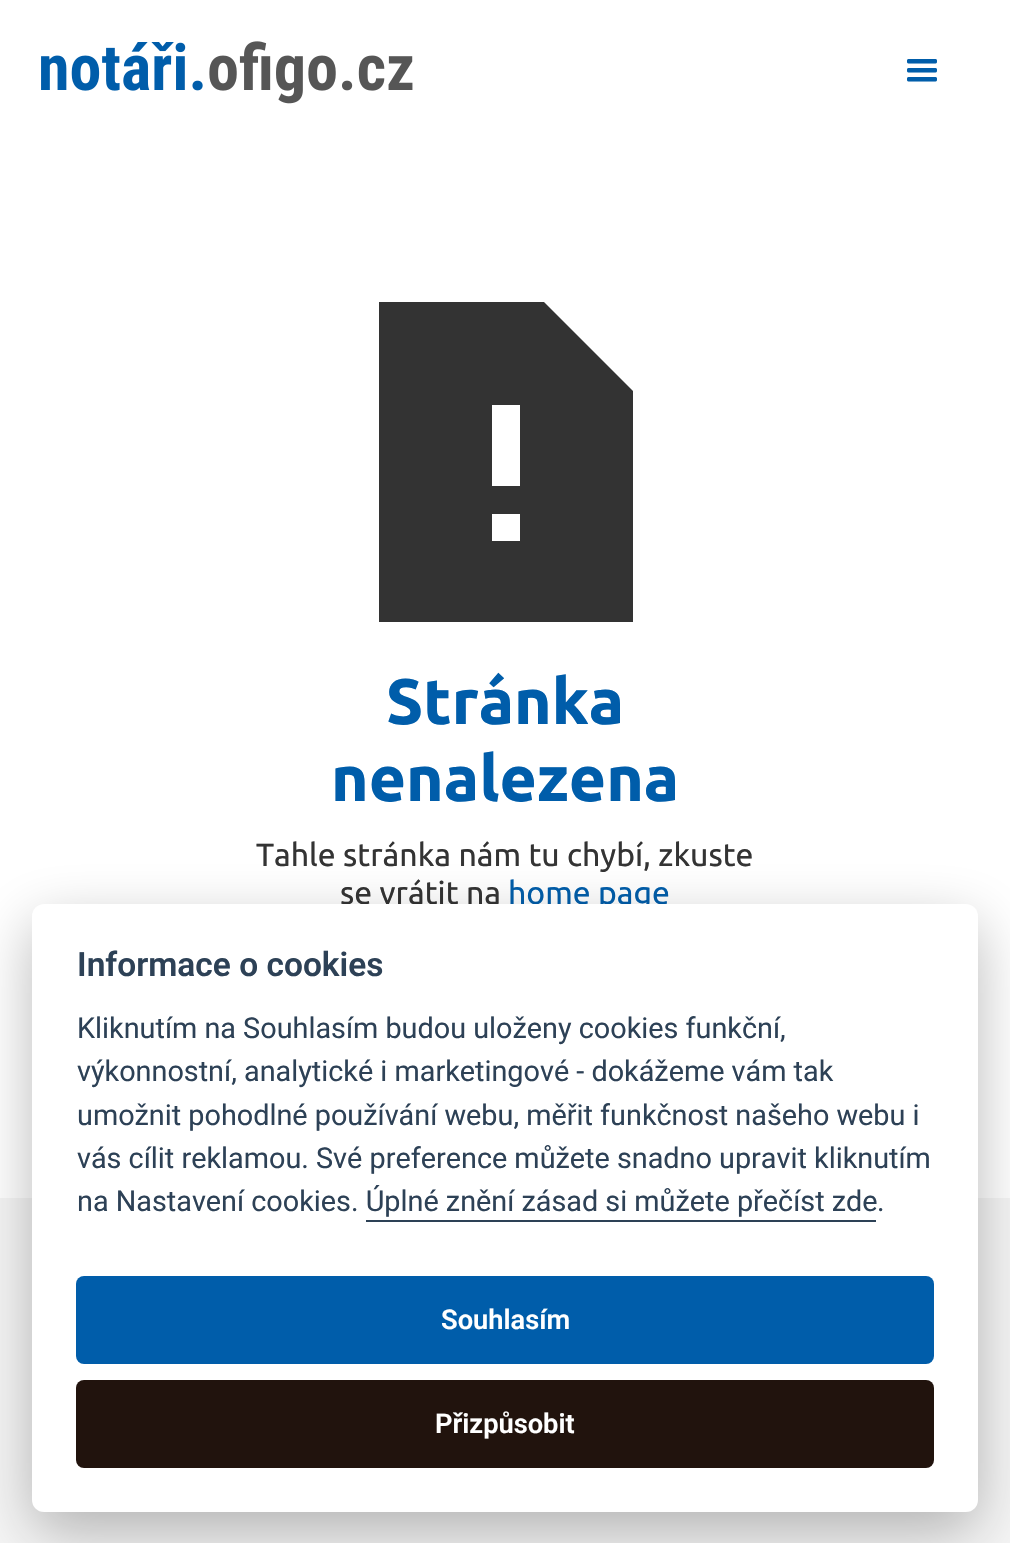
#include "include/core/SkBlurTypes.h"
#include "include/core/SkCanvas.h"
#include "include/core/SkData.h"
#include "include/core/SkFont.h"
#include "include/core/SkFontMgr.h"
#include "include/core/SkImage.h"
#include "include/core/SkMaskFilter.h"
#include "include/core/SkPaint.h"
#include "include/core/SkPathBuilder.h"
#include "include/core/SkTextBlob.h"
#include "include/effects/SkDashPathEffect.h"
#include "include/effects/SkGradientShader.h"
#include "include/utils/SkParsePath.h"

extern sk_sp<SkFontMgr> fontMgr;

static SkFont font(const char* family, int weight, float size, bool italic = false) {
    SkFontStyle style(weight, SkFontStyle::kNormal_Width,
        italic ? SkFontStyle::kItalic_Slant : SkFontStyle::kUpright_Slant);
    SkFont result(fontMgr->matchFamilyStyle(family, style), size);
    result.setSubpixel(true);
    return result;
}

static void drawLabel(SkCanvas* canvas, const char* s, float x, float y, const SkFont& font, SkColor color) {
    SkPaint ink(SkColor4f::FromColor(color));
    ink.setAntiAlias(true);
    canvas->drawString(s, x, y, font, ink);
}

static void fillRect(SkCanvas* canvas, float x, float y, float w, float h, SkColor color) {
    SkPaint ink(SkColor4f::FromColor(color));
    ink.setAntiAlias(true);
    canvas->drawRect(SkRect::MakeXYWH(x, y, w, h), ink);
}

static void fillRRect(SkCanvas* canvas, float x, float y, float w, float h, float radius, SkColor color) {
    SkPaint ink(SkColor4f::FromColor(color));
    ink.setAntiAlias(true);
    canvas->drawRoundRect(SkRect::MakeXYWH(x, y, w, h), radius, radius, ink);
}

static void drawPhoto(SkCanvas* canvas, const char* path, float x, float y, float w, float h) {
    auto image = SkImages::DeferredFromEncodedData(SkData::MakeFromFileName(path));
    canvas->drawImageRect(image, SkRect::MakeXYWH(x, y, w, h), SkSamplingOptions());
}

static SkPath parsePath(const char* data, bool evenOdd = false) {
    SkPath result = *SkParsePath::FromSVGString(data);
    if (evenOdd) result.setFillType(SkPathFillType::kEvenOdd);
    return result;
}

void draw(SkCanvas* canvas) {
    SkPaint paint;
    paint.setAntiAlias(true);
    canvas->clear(0xFFFFFFFF);
    drawPhoto(canvas, "assets/img1.png", 41, 41, 372, 63);
    drawPhoto(canvas, "assets/img2.png", 907, 59, 30, 23);
    paint.setColor(0xFF333333);
    canvas->drawPath(parsePath("M379 302H544L633 391V622H379ZM492 405H520V486H492ZM492 514H520V541H492Z", true), paint);
    SkFont font1 = font("Ubuntu", 700, 64);
    drawLabel(canvas, "Stránka", 386, 724, font1, 0xFF005DAA);
    drawLabel(canvas, "nenalezena", 331, 801, font1, 0xFF005DAA);
    SkFont font2 = font("Ubuntu", 400, 32);
    drawLabel(canvas, "Tahle stránka nám tu chybí, zkuste", 256, 866, font2, 0xFF333333);
    drawLabel(canvas, "se vrátit na", 340, 904, font2, 0xFF333333);
    drawLabel(canvas, "home page", 508, 904, font2, 0xFF005DAA);
    fillRect(canvas, 0, 1198, 1010, 345, 0xFFF5F5F5);
    paint.setColor(0x47020203);
    paint.setMaskFilter(SkMaskFilter::MakeBlur(kNormal_SkBlurStyle, 30));
    canvas->drawRoundRect(SkRect::MakeXYWH(32, 924, 946, 608), 12, 12, paint);
    paint.setMaskFilter(nullptr);
    fillRRect(canvas, 32, 904, 946, 608, 12, 0xFFFFFFFF);
    SkFont font3 = font("Roboto", 600, 33.5f);
    drawLabel(canvas, "Informace o cookies", 77, 976, font3, 0xFF2D4156);
    SkFont font4 = font("Roboto", 400, 28.8f);
    drawLabel(canvas, "Kliknutím na Souhlasím budou uloženy cookies funkční,", 77, 1038, font4, 0xFF2D4156);
    drawLabel(canvas, "výkonnostní, analytické i marketingové - dokážeme vám tak", 77, 1081, font4, 0xFF2D4156);
    drawLabel(canvas, "umožnit pohodlné používání webu, měřit funkčnost našeho webu i", 77, 1125, font4, 0xFF2D4156);
    drawLabel(canvas, "vás cílit reklamou. Své preference můžete snadno upravit kliknutím", 77, 1168, font4, 0xFF2D4156);
    drawLabel(canvas, "na Nastavení cookies. Úplné znění zásad si můžete přečíst zde", 77, 1211, font4, 0xFF2D4156);
    drawLabel(canvas, ".", 877, 1211, font4, 0xFF2D4156);
    fillRect(canvas, 366, 1220, 510, 2, 0xFF2D4156);
    fillRRect(canvas, 76, 1276, 858, 88, 8, 0xFF005DAA);
    SkFont font5 = font("Roboto", 600, 27.25f);
    drawLabel(canvas, "Souhlasím", 441, 1329, font5, 0xFFFFFFFF);
    fillRRect(canvas, 76, 1380, 858, 88, 8, 0xFF21130D);
    drawLabel(canvas, "Přizpůsobit", 435, 1433, font5, 0xFFFFFFFF);
}
